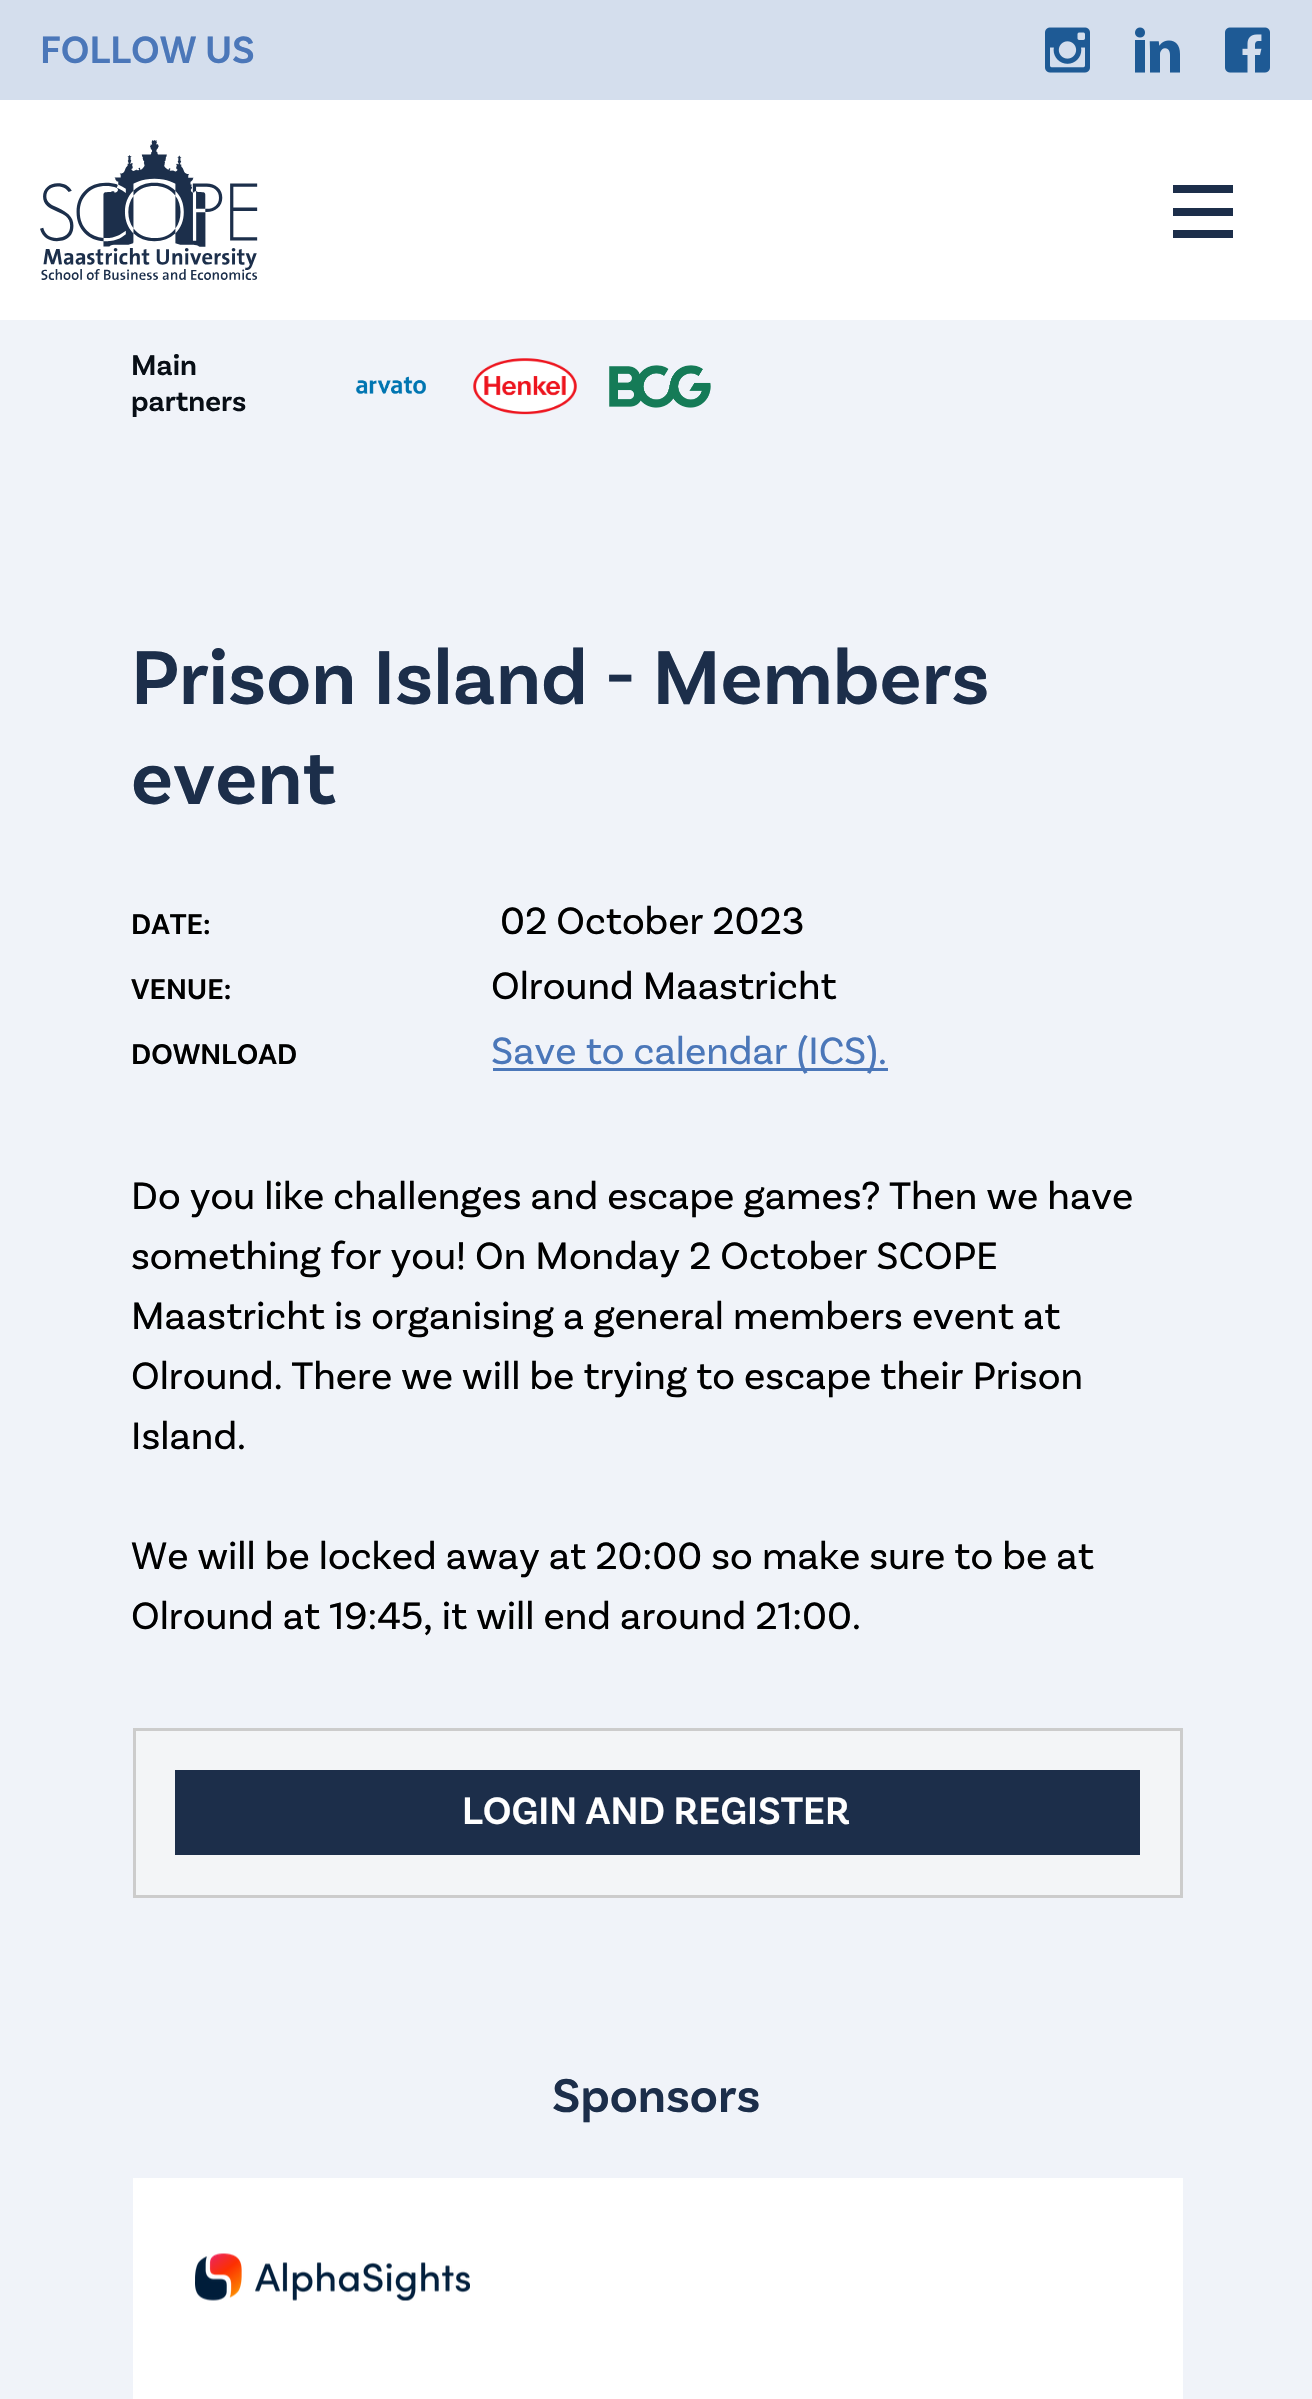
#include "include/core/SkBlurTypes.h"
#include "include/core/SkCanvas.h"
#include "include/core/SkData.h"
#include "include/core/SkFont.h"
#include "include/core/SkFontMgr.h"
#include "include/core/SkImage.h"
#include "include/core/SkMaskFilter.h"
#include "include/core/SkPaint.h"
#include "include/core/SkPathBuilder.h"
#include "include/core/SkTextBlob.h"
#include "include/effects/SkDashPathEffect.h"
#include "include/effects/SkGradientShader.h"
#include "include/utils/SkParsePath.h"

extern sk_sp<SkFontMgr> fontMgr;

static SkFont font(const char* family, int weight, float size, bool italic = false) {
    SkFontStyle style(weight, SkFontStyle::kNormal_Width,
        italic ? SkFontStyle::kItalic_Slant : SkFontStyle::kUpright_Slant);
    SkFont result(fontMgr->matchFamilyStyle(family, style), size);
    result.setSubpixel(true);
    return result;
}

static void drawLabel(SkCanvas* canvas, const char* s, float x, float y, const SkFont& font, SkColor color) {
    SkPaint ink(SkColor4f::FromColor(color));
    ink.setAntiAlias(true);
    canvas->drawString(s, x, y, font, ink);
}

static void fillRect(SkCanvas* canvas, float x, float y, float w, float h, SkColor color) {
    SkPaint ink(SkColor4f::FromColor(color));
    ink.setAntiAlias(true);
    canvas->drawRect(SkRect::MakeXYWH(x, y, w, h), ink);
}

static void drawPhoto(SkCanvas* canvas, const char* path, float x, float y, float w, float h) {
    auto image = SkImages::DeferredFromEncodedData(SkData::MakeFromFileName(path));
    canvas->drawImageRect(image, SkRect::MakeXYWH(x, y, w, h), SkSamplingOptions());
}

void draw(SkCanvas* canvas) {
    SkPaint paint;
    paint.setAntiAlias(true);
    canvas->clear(0xFFF0F3F9);
    fillRect(canvas, 0, 0, 1312, 100, 0xFFD4DEED);
    SkFont font1 = font("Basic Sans", 600, 40);
    drawLabel(canvas, "FOLLOW US", 40, 63, font1, 0xFF4B77B9);
    drawPhoto(canvas, "assets/img1.png", 1045, 27, 45, 46);
    drawPhoto(canvas, "assets/img2.png", 1135, 27, 45, 46);
    drawPhoto(canvas, "assets/img3.png", 1225, 27, 45, 46);
    fillRect(canvas, 0, 100, 1312, 220, 0xFFFFFFFF);
    drawPhoto(canvas, "assets/img4.png", 40, 140, 218, 140);
    fillRect(canvas, 1173, 208, 60, 8, 0xFF1C2E4A);
    fillRect(canvas, 1173, 185, 60, 8, 0xFF1C2E4A);
    fillRect(canvas, 1173, 230, 60, 8, 0xFF1C2E4A);
    SkFont font2 = font("Basic Sans", 600, 30);
    drawLabel(canvas, "Main", 131, 375, font2, 0xFF080E16);
    drawLabel(canvas, "partners", 131, 411, font2, 0xFF080E16);
    drawPhoto(canvas, "assets/img5.png", 355, 376, 71, 18);
    drawPhoto(canvas, "assets/img6.png", 473, 358, 104, 57);
    drawPhoto(canvas, "assets/img7.png", 609, 365, 102, 43);
    SkFont font3 = font("Basic Sans", 600, 80);
    drawLabel(canvas, "Prison Island - Members", 131, 704, font3, 0xFF1C2E4A);
    drawLabel(canvas, "event", 131, 804, font3, 0xFF1C2E4A);
    drawLabel(canvas, "DATE:", 131, 934, font2, 0xFF000000);
    SkFont font4 = font("Basic Sans", 400, 40);
    drawLabel(canvas, "02 October 2023", 500, 934, font4, 0xFF000000);
    drawLabel(canvas, "VENUE:", 131, 999, font2, 0xFF000000);
    drawLabel(canvas, "Olround Maastricht", 491, 999, font4, 0xFF000000);
    drawLabel(canvas, "DOWNLOAD", 131, 1064, font2, 0xFF000000);
    fillRect(canvas, 493, 1068, 395, 3, 0xFF4B77B9);
    drawLabel(canvas, "Save to calendar (ICS).", 491, 1064, font4, 0xFF4B77B9);
    drawLabel(canvas, "Do you like challenges and escape games? Then we have", 131, 1209, font4, 0xFF000000);
    drawLabel(canvas, "something for you! On Monday 2 October SCOPE", 131, 1269, font4, 0xFF000000);
    drawLabel(canvas, "Maastricht is organising a general members event at", 131, 1329, font4, 0xFF000000);
    drawLabel(canvas, "Olround. There we will be trying to escape their Prison", 131, 1389, font4, 0xFF000000);
    drawLabel(canvas, "Island.", 131, 1449, font4, 0xFF000000);
    drawLabel(canvas, "We will be locked away at 20:00 so make sure to be at", 131, 1569, font4, 0xFF000000);
    drawLabel(canvas, "Olround at 19:45, it will end around 21:00.", 131, 1629, font4, 0xFF000000);
    paint.setColor(0xFFF3F5F7);
    canvas->drawRect(SkRect::MakeXYWH(134.5f, 1729.5f, 1047, 167), paint);
    paint.setStroke(true);
    paint.setStrokeWidth(3);
    paint.setColor(0xFFCCCCCC);
    canvas->drawRect(SkRect::MakeXYWH(134.5f, 1729.5f, 1047, 167), paint);
    fillRect(canvas, 175, 1770, 965, 85, 0xFF1C2E4A);
    drawLabel(canvas, "LOGIN AND REGISTER", 462, 1824, font1, 0xFFFFFFFF);
    SkFont font5 = font("Basic Sans", 600, 50);
    drawLabel(canvas, "Sponsors", 552, 2112, font5, 0xFF1C2E4A);
    fillRect(canvas, 133, 2178, 1050, 221, 0xFFFFFFFF);
    drawPhoto(canvas, "assets/img8.png", 195, 2253, 275, 48);
}
